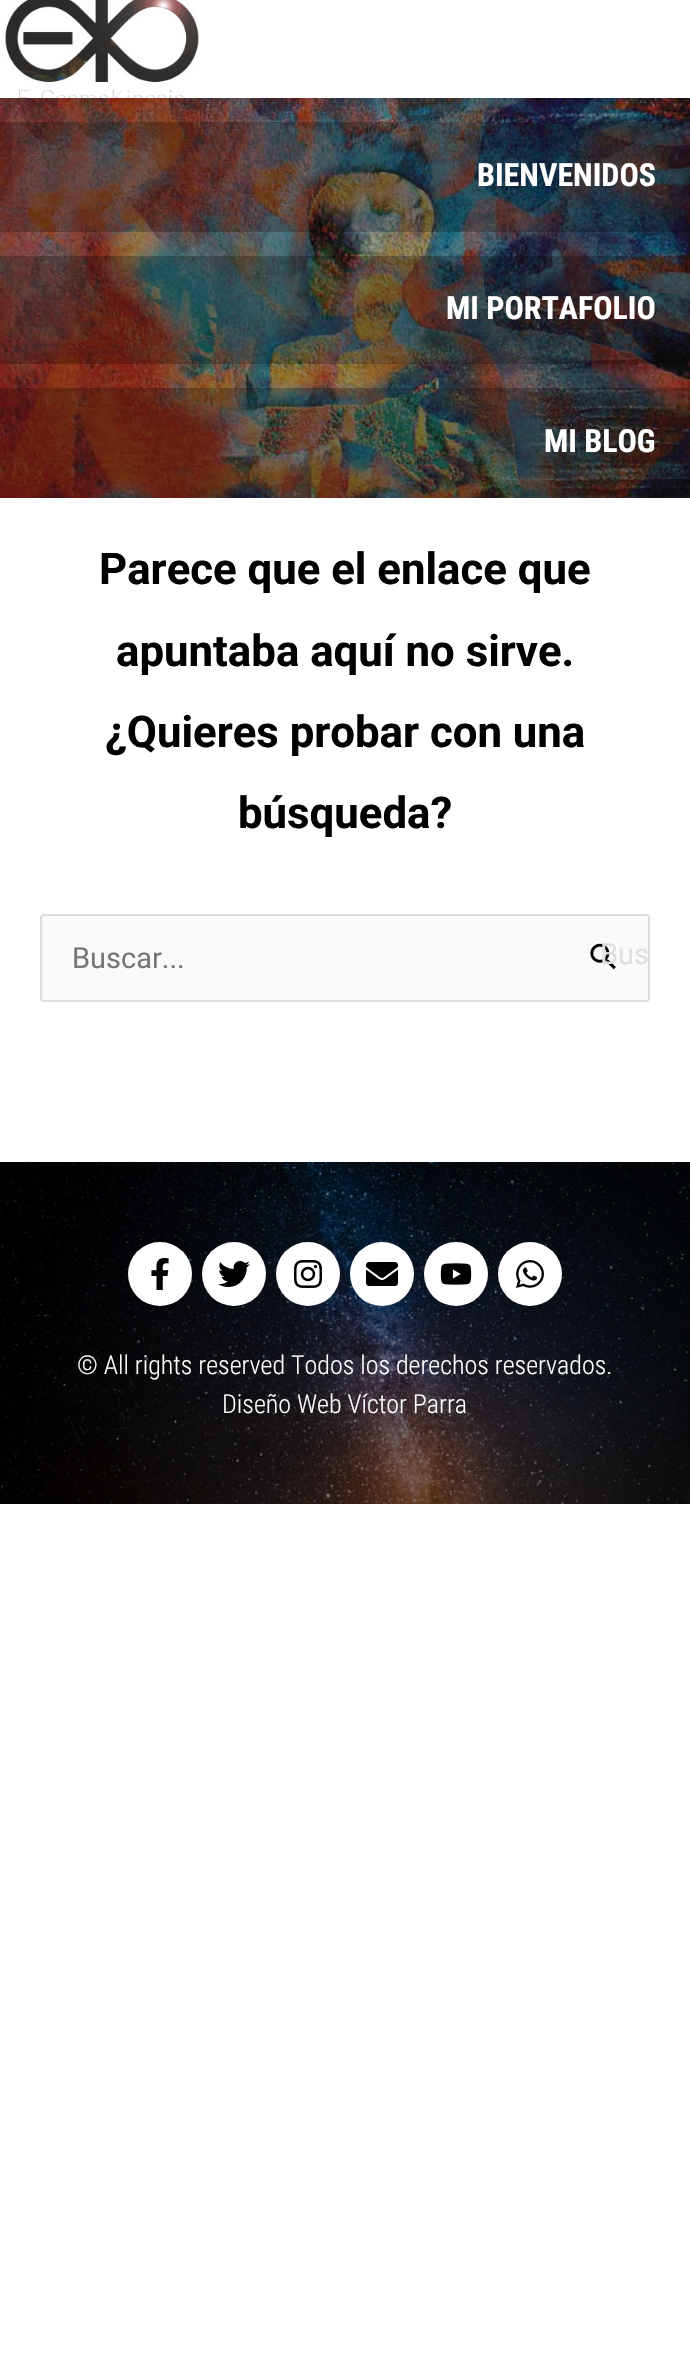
#include "include/core/SkBlurTypes.h"
#include "include/core/SkCanvas.h"
#include "include/core/SkData.h"
#include "include/core/SkFont.h"
#include "include/core/SkFontMgr.h"
#include "include/core/SkImage.h"
#include "include/core/SkMaskFilter.h"
#include "include/core/SkPaint.h"
#include "include/core/SkPathBuilder.h"
#include "include/core/SkTextBlob.h"
#include "include/effects/SkDashPathEffect.h"
#include "include/effects/SkGradientShader.h"
#include "include/utils/SkParsePath.h"

extern sk_sp<SkFontMgr> fontMgr;

static SkFont font(const char* family, int weight, float size, bool italic = false) {
    SkFontStyle style(weight, SkFontStyle::kNormal_Width,
        italic ? SkFontStyle::kItalic_Slant : SkFontStyle::kUpright_Slant);
    SkFont result(fontMgr->matchFamilyStyle(family, style), size);
    result.setSubpixel(true);
    return result;
}

static void drawLabel(SkCanvas* canvas, const char* s, float x, float y, const SkFont& font, SkColor color) {
    SkPaint ink(SkColor4f::FromColor(color));
    ink.setAntiAlias(true);
    canvas->drawString(s, x, y, font, ink);
}

static void fillRect(SkCanvas* canvas, float x, float y, float w, float h, SkColor color) {
    SkPaint ink(SkColor4f::FromColor(color));
    ink.setAntiAlias(true);
    canvas->drawRect(SkRect::MakeXYWH(x, y, w, h), ink);
}

static void drawPhoto(SkCanvas* canvas, const char* path, float x, float y, float w, float h) {
    auto image = SkImages::DeferredFromEncodedData(SkData::MakeFromFileName(path));
    canvas->drawImageRect(image, SkRect::MakeXYWH(x, y, w, h), SkSamplingOptions());
}

void draw(SkCanvas* canvas) {
    SkPaint paint;
    paint.setAntiAlias(true);
    canvas->clear(0xFFFFFFFF);
    drawPhoto(canvas, "assets/img1.png", 5, 0, 194, 98);
    drawPhoto(canvas, "assets/img2.png", 0, 98, 690, 400);
    fillRect(canvas, 0, 122, 690, 110, 0x3D050000);
    SkFont font1 = font("Roboto Condensed", 700, 32);
    drawLabel(canvas, "BIENVENIDOS", 477, 186, font1, 0xFFFFFFFF);
    fillRect(canvas, 0, 256, 690, 108, 0x3D050000);
    drawLabel(canvas, "MI PORTAFOLIO", 446, 319, font1, 0xFFFFFFFF);
    fillRect(canvas, 0, 388, 690, 110, 0x3D050000);
    drawLabel(canvas, "MI BLOG", 544, 452, font1, 0xFFFFFFFF);
    SkFont font2 = font("Roboto", 700, 43.75f);
    drawLabel(canvas, "Parece que el enlace que", 99, 584, font2, 0xFF000000);
    drawLabel(canvas, "apuntaba aquí no sirve.", 116, 666, font2, 0xFF000000);
    drawLabel(canvas, "¿Quieres probar con una", 105, 747, font2, 0xFF000000);
    drawLabel(canvas, "búsqueda?", 238, 828, font2, 0xFF000000);
    paint.setColor(0xFFFAFAFA);
    canvas->drawRoundRect(SkRect::MakeXYWH(41, 915, 608, 86), 3, 3, paint);
    paint.setStroke(true);
    paint.setStrokeWidth(2);
    paint.setColor(0xFFDDDDDD);
    canvas->drawRoundRect(SkRect::MakeXYWH(41, 915, 608, 86), 3, 3, paint);
    drawPhoto(canvas, "assets/img3.png", 590, 943, 26, 27);
    SkFont font3 = font("Roboto", 400, 29);
    drawLabel(canvas, "Buscar...", 72, 968, font3, 0xFF757575);
    drawLabel(canvas, "Bus", 600, 964, font3, 0xFFE0E0E0);
    drawPhoto(canvas, "assets/img4.png", 0, 1162, 690, 342);
    paint.setStroke(false);
    paint.setColor(0xFFFFFFFF);
    canvas->drawCircle(160, 1274, 32, paint);
    drawPhoto(canvas, "assets/img5.png", 151, 1258, 18, 32);
    canvas->drawCircle(234, 1274, 32, paint);
    drawPhoto(canvas, "assets/img6.png", 218, 1261, 32, 26);
    canvas->drawCircle(308, 1274, 32, paint);
    drawPhoto(canvas, "assets/img7.png", 294, 1260, 28, 28);
    canvas->drawCircle(382, 1274, 32, paint);
    drawPhoto(canvas, "assets/img8.png", 366, 1262, 32, 24);
    canvas->drawCircle(456, 1274, 32, paint);
    drawPhoto(canvas, "assets/img9.png", 440, 1263, 32, 22);
    canvas->drawCircle(530, 1274, 32, paint);
    drawPhoto(canvas, "assets/img10.png", 516, 1260, 28, 28);
    SkFont font4 = font("Roboto Condensed", 300, 26);
    drawLabel(canvas, "© All rights reserved Todos los derechos reservados.", 77, 1374, font4, 0xFFFFFFFF);
    drawLabel(canvas, "Diseño Web Víctor Parra", 222, 1413, font4, 0xFFFFFFFF);
}
